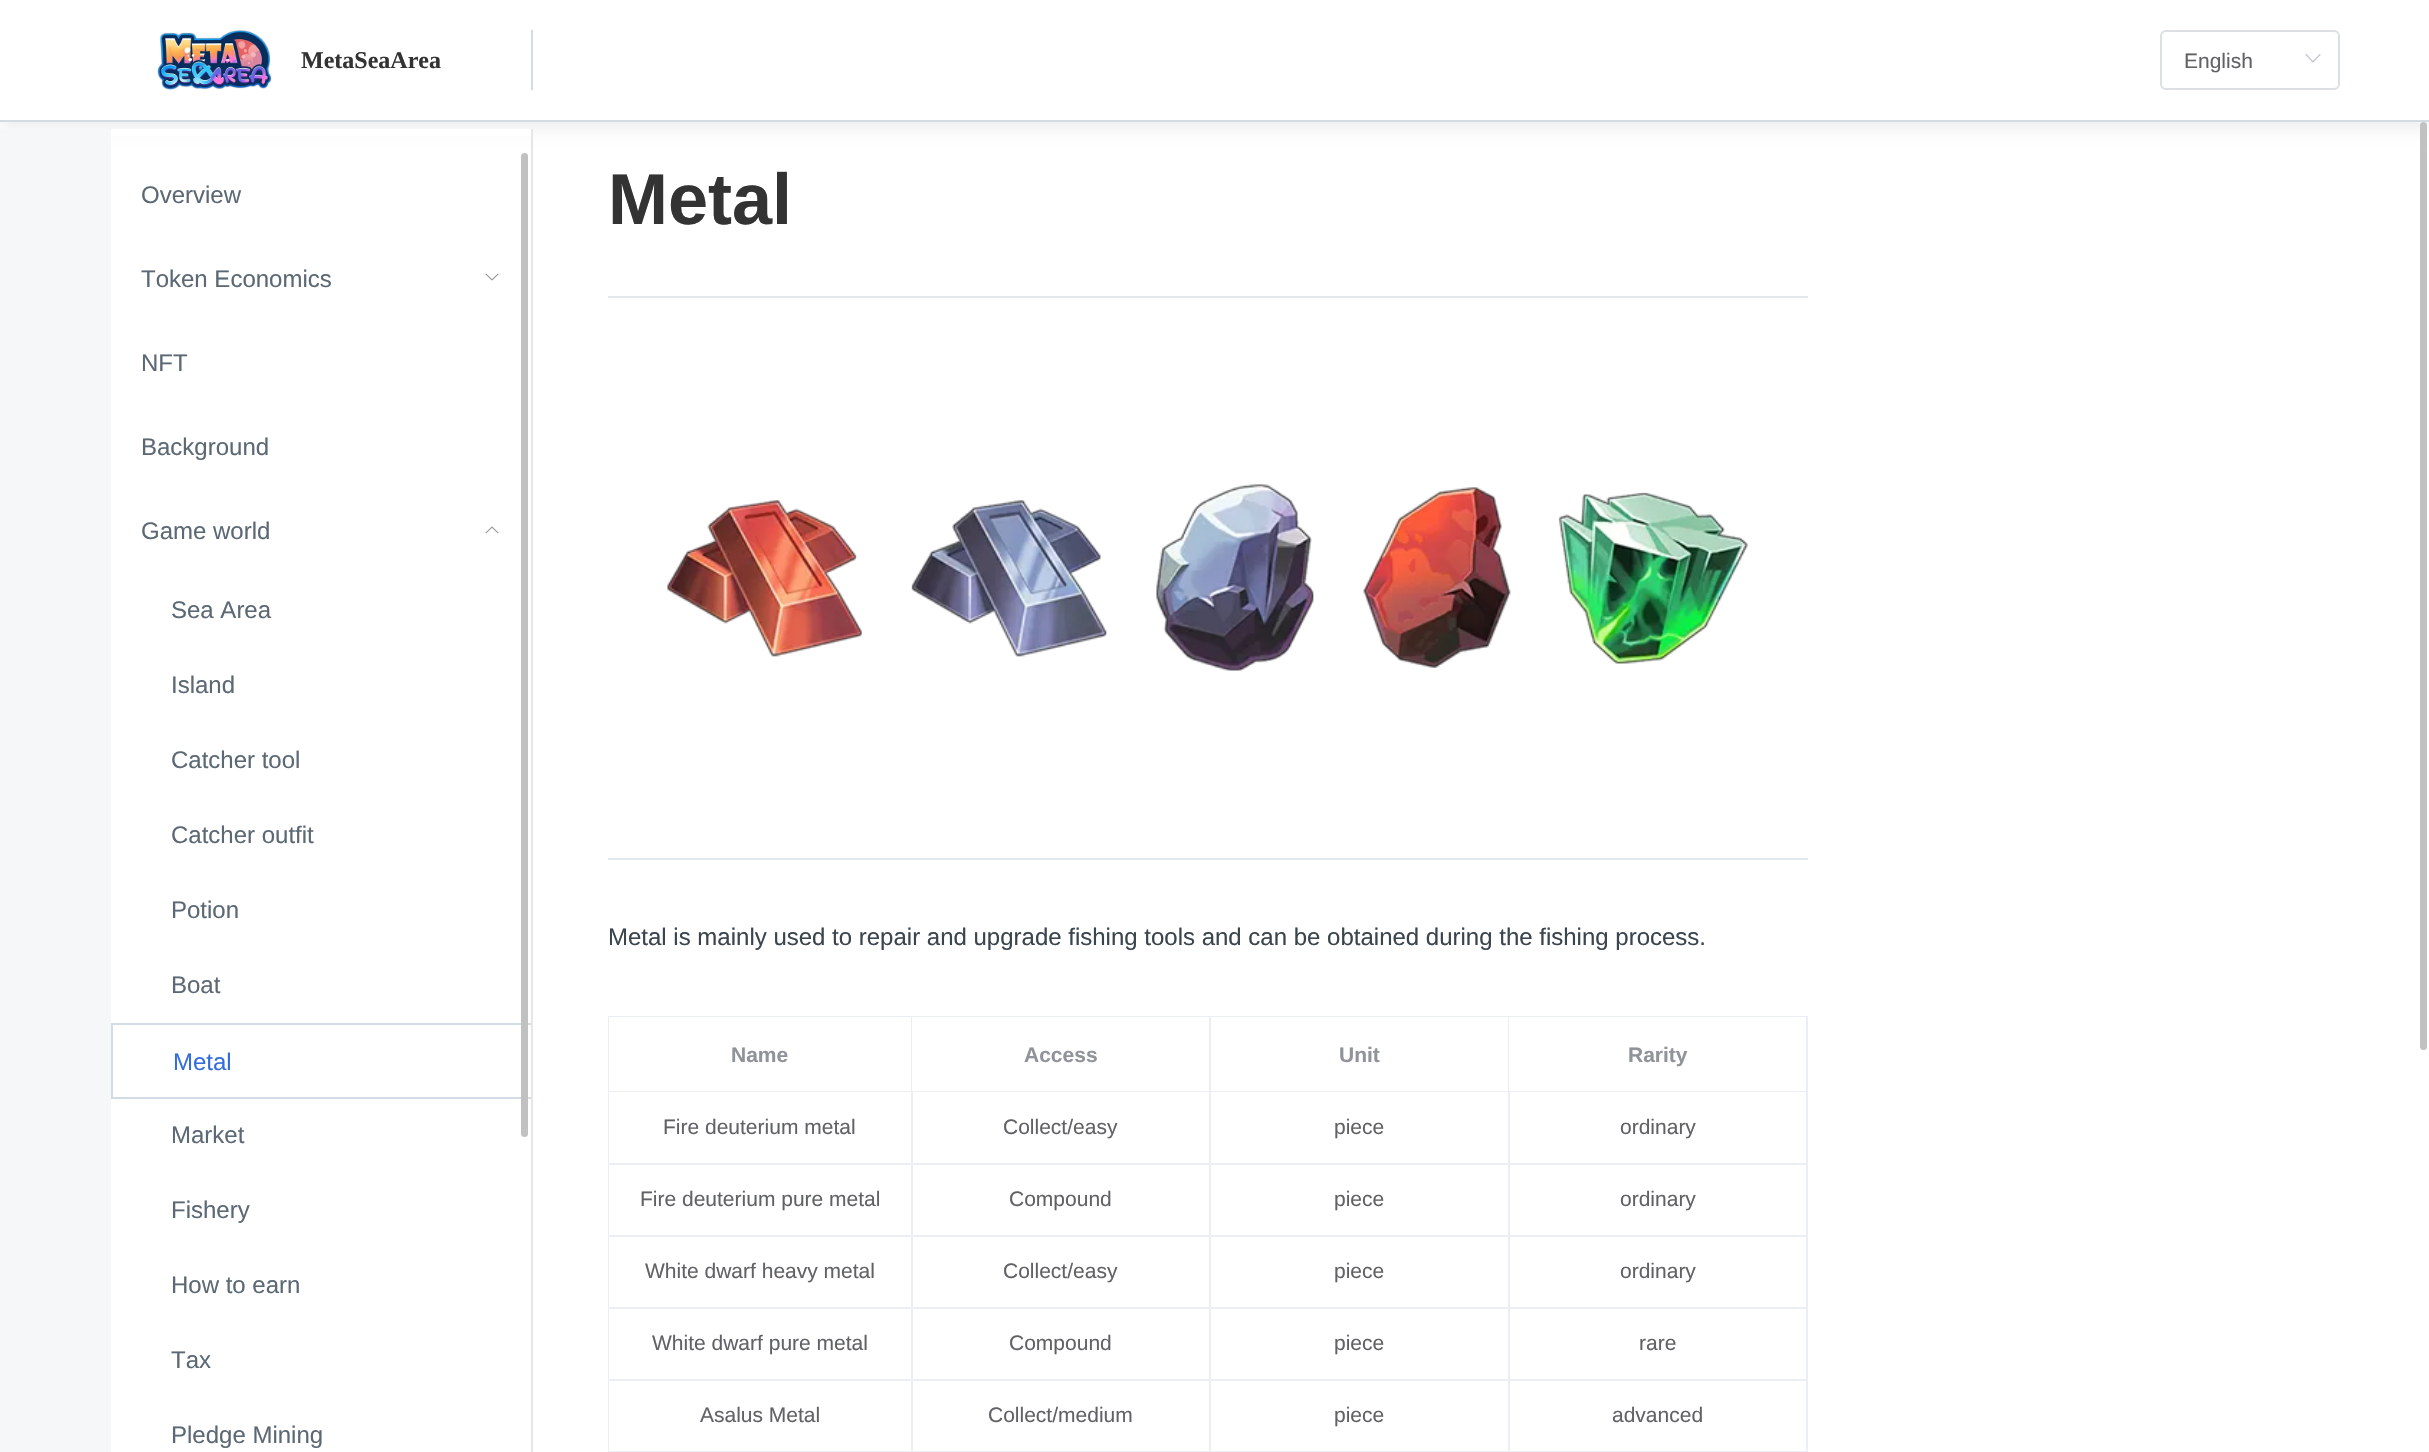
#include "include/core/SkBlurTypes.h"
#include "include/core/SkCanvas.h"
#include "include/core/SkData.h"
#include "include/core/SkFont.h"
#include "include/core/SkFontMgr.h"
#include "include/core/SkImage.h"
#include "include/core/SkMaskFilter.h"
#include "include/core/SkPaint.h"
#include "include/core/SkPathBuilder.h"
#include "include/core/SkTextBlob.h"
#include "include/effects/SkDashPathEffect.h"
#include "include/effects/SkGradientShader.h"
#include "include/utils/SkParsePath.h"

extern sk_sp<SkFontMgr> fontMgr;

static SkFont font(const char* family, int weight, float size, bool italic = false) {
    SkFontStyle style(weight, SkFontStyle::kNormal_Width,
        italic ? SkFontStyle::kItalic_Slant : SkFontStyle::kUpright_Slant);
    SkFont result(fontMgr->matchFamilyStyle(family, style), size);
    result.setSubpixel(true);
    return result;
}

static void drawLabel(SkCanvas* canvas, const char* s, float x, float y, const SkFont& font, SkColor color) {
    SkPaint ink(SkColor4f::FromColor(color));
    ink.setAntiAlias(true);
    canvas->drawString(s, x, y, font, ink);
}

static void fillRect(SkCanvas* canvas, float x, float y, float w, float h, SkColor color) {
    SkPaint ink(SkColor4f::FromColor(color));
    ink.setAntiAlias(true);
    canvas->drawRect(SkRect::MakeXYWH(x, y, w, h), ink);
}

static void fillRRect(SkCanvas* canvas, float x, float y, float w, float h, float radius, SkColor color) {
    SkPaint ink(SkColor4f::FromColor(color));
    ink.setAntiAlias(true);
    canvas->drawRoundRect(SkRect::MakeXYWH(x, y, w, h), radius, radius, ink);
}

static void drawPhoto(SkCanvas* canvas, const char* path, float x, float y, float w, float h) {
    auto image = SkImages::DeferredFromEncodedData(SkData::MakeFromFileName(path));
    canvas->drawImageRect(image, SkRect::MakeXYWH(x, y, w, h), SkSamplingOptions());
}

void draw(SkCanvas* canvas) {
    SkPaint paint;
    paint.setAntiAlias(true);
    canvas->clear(0xFFFFFFFF);
    paint.setColor(0x12000000);
    paint.setMaskFilter(SkMaskFilter::MakeBlur(kNormal_SkBlurStyle, 7.5f));
    canvas->drawRect(SkRect::MakeXYWH(0, 6, 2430, 122), paint);
    paint.setMaskFilter(nullptr);
    fillRect(canvas, 0, 0, 2429, 120, 0xFFFFFFFF);
    fillRect(canvas, 0, 120, 2429, 2, 0xFFD3DCE4);
    fillRect(canvas, 531, 30, 2, 60, 0xFFD3DCE4);
    drawPhoto(canvas, "assets/img1.png", 157, 30, 115, 60);
    SkFont font1 = font("Liberation Serif", 700, 24);
    drawLabel(canvas, "MetaSeaArea", 301, 68, font1, 0xFF333333);
    paint.setStroke(true);
    paint.setStrokeWidth(2);
    paint.setColor(0xFFDCDFE6);
    canvas->drawRoundRect(SkRect::MakeXYWH(2161, 31, 178, 58), 5, 5, paint);
    SkFont font2 = font("Liberation Sans", 400, 21);
    drawLabel(canvas, "English", 2184, 68, font2, 0xFF606266);
    drawPhoto(canvas, "assets/img2.png", 2305, 54, 16, 9);
    fillRect(canvas, 0, 129, 111, 1323, 0xFFF5F7F9);
    fillRect(canvas, 111, 129, 420, 7, 0xFFFFFFFF);
    fillRect(canvas, 531, 129, 2, 1323, 0xFFE6E6E6);
    SkFont font3 = font("Liberation Sans", 400, 24);
    drawLabel(canvas, "Overview", 141, 203, font3, 0xFF5C6975);
    drawLabel(canvas, "Token Economics", 141, 287, font3, 0xFF5C6975);
    drawPhoto(canvas, "assets/img3.png", 485, 273, 14, 8);
    drawLabel(canvas, "NFT", 141, 371, font3, 0xFF5C6975);
    drawLabel(canvas, "Background", 141, 455, font3, 0xFF5C6975);
    drawLabel(canvas, "Game world", 141, 539, font3, 0xFF5C6975);
    drawPhoto(canvas, "assets/img4.png", 485, 526, 14, 8);
    drawLabel(canvas, "Sea Area", 171, 618, font3, 0xFF5C6975);
    drawLabel(canvas, "Island", 171, 693, font3, 0xFF5C6975);
    drawLabel(canvas, "Catcher tool", 171, 768, font3, 0xFF5C6975);
    drawLabel(canvas, "Catcher outfit", 171, 843, font3, 0xFF5C6975);
    drawLabel(canvas, "Potion", 171, 918, font3, 0xFF5C6975);
    drawLabel(canvas, "Boat", 171, 993, font3, 0xFF5C6975);
    fillRect(canvas, 111, 1023, 420, 2, 0xFFD3DCE4);
    fillRect(canvas, 111, 1097, 420, 2, 0xFFD3DCE4);
    fillRect(canvas, 111, 1023, 2, 75, 0xFFD3DCE4);
    drawLabel(canvas, "Metal", 173, 1070, font3, 0xFF346DDB);
    drawLabel(canvas, "Market", 171, 1143, font3, 0xFF5C6975);
    drawLabel(canvas, "Fishery", 171, 1218, font3, 0xFF5C6975);
    drawLabel(canvas, "How to earn", 171, 1293, font3, 0xFF5C6975);
    drawLabel(canvas, "Tax", 171, 1368, font3, 0xFF5C6975);
    drawLabel(canvas, "Pledge Mining", 171, 1443, font3, 0xFF5C6975);
    fillRRect(canvas, 521, 153, 7, 984, 3.5f, 0xFFC1C1C1);
    fillRect(canvas, 608, 296, 1200, 2, 0xFFE3E8ED);
    SkFont font4 = font("Liberation Sans", 700, 72);
    drawLabel(canvas, "Metal", 608, 224, font4, 0xFF333333);
    drawPhoto(canvas, "assets/img5.png", 667, 484, 1081, 187);
    fillRect(canvas, 608, 858, 1200, 2, 0xFFE3E8ED);
    drawLabel(canvas, "Metal is mainly used to repair and upgrade fishing tools and can be obtained during the fishing process.", 608, 945, font3, 0xFF3B454E);
    fillRect(canvas, 608, 1016, 1200, 1, 0xFFEBEEF5);
    fillRect(canvas, 608, 1016, 2, 436, 0xFFEBEEF5);
    fillRect(canvas, 609, 1017, 1, 74, 0xFFFFFFFF);
    fillRect(canvas, 911, 1017, 1, 147, 0xFFEBEEF5);
    fillRect(canvas, 609, 1091, 303, 1, 0xFFEBEEF5);
    SkFont font5 = font("Liberation Sans", 700, 21);
    drawLabel(canvas, "Name", 731, 1062, font5, 0xFF909399);
    fillRect(canvas, 609, 1092, 1, 71, 0xFFFFFFFF);
    fillRect(canvas, 609, 1163, 303, 2, 0xFFEBEEF5);
    drawLabel(canvas, "Fire deuterium metal", 663, 1134, font2, 0xFF606266);
    fillRect(canvas, 609, 1165, 1, 70, 0xFFFFFFFF);
    fillRect(canvas, 911, 1164, 1, 72, 0xFFEBEEF5);
    fillRect(canvas, 609, 1235, 303, 2, 0xFFEBEEF5);
    drawLabel(canvas, "Fire deuterium pure metal", 640, 1206, font2, 0xFF606266);
    fillRect(canvas, 609, 1237, 1, 70, 0xFFFFFFFF);
    fillRect(canvas, 911, 1236, 1, 72, 0xFFEBEEF5);
    fillRect(canvas, 609, 1307, 303, 2, 0xFFEBEEF5);
    drawLabel(canvas, "White dwarf heavy metal", 645, 1278, font2, 0xFF606266);
    fillRect(canvas, 609, 1309, 1, 70, 0xFFFFFFFF);
    fillRect(canvas, 911, 1308, 1, 72, 0xFFEBEEF5);
    fillRect(canvas, 609, 1379, 303, 2, 0xFFEBEEF5);
    drawLabel(canvas, "White dwarf pure metal", 652, 1350, font2, 0xFF606266);
    fillRect(canvas, 609, 1381, 1, 70, 0xFFFFFFFF);
    fillRect(canvas, 911, 1380, 1, 72, 0xFFEBEEF5);
    fillRect(canvas, 609, 1451, 303, 1, 0xFFEBEEF5);
    drawLabel(canvas, "Asalus Metal", 700, 1422, font2, 0xFF606266);
    fillRect(canvas, 1209, 1017, 2, 147, 0xFFEBEEF5);
    fillRect(canvas, 912, 1091, 299, 1, 0xFFEBEEF5);
    drawLabel(canvas, "Access", 1024, 1062, font5, 0xFF909399);
    fillRect(canvas, 1508, 1017, 1, 75, 0xFFEBEEF5);
    fillRect(canvas, 1211, 1091, 298, 1, 0xFFEBEEF5);
    drawLabel(canvas, "Unit", 1339, 1062, font5, 0xFF909399);
    fillRect(canvas, 1806, 1017, 2, 147, 0xFFEBEEF5);
    fillRect(canvas, 1509, 1091, 299, 1, 0xFFEBEEF5);
    drawLabel(canvas, "Rarity", 1628, 1062, font5, 0xFF909399);
    fillRect(canvas, 912, 1092, 1, 72, 0xFFEBEEF5);
    fillRect(canvas, 912, 1163, 299, 2, 0xFFEBEEF5);
    drawLabel(canvas, "Collect/easy", 1003, 1134, font2, 0xFF606266);
    fillRect(canvas, 1508, 1092, 2, 72, 0xFFEBEEF5);
    fillRect(canvas, 1211, 1163, 597, 2, 0xFFEBEEF5);
    drawLabel(canvas, "piece", 1334, 1134, font2, 0xFF606266);
    drawLabel(canvas, "ordinary", 1620, 1134, font2, 0xFF606266);
    fillRect(canvas, 912, 1164, 1, 72, 0xFFEBEEF5);
    fillRect(canvas, 1209, 1164, 2, 72, 0xFFEBEEF5);
    fillRect(canvas, 912, 1235, 299, 2, 0xFFEBEEF5);
    drawLabel(canvas, "Compound", 1009, 1206, font2, 0xFF606266);
    fillRect(canvas, 1508, 1164, 2, 72, 0xFFEBEEF5);
    fillRect(canvas, 1211, 1235, 298, 2, 0xFFEBEEF5);
    drawLabel(canvas, "piece", 1334, 1206, font2, 0xFF606266);
    fillRect(canvas, 1806, 1164, 2, 72, 0xFFEBEEF5);
    fillRect(canvas, 1509, 1235, 299, 2, 0xFFEBEEF5);
    drawLabel(canvas, "ordinary", 1620, 1206, font2, 0xFF606266);
    fillRect(canvas, 912, 1236, 1, 72, 0xFFEBEEF5);
    fillRect(canvas, 1209, 1236, 2, 72, 0xFFEBEEF5);
    fillRect(canvas, 912, 1307, 299, 2, 0xFFEBEEF5);
    drawLabel(canvas, "Collect/easy", 1003, 1278, font2, 0xFF606266);
    fillRect(canvas, 1508, 1236, 2, 72, 0xFFEBEEF5);
    fillRect(canvas, 1211, 1307, 298, 2, 0xFFEBEEF5);
    drawLabel(canvas, "piece", 1334, 1278, font2, 0xFF606266);
    fillRect(canvas, 1806, 1236, 2, 72, 0xFFEBEEF5);
    fillRect(canvas, 1509, 1307, 299, 2, 0xFFEBEEF5);
    drawLabel(canvas, "ordinary", 1620, 1278, font2, 0xFF606266);
    fillRect(canvas, 912, 1308, 1, 72, 0xFFEBEEF5);
    fillRect(canvas, 1209, 1308, 2, 72, 0xFFEBEEF5);
    fillRect(canvas, 912, 1379, 299, 2, 0xFFEBEEF5);
    drawLabel(canvas, "Compound", 1009, 1350, font2, 0xFF606266);
    fillRect(canvas, 1508, 1308, 2, 72, 0xFFEBEEF5);
    fillRect(canvas, 1211, 1379, 298, 2, 0xFFEBEEF5);
    drawLabel(canvas, "piece", 1334, 1350, font2, 0xFF606266);
    fillRect(canvas, 1806, 1308, 2, 72, 0xFFEBEEF5);
    fillRect(canvas, 1509, 1379, 299, 2, 0xFFEBEEF5);
    drawLabel(canvas, "rare", 1639, 1350, font2, 0xFF606266);
    fillRect(canvas, 912, 1380, 1, 72, 0xFFEBEEF5);
    fillRect(canvas, 1209, 1380, 2, 72, 0xFFEBEEF5);
    fillRect(canvas, 912, 1451, 299, 1, 0xFFEBEEF5);
    drawLabel(canvas, "Collect/medium", 988, 1422, font2, 0xFF606266);
    fillRect(canvas, 1508, 1380, 2, 72, 0xFFEBEEF5);
    fillRect(canvas, 1211, 1451, 298, 1, 0xFFEBEEF5);
    drawLabel(canvas, "piece", 1334, 1422, font2, 0xFF606266);
    fillRect(canvas, 1806, 1380, 2, 72, 0xFFEBEEF5);
    fillRect(canvas, 1509, 1451, 299, 1, 0xFFEBEEF5);
    drawLabel(canvas, "advanced", 1612, 1422, font2, 0xFF606266);
    fillRRect(canvas, 2420, 122, 7, 928, 3.5f, 0xFFC1C1C1);
}
